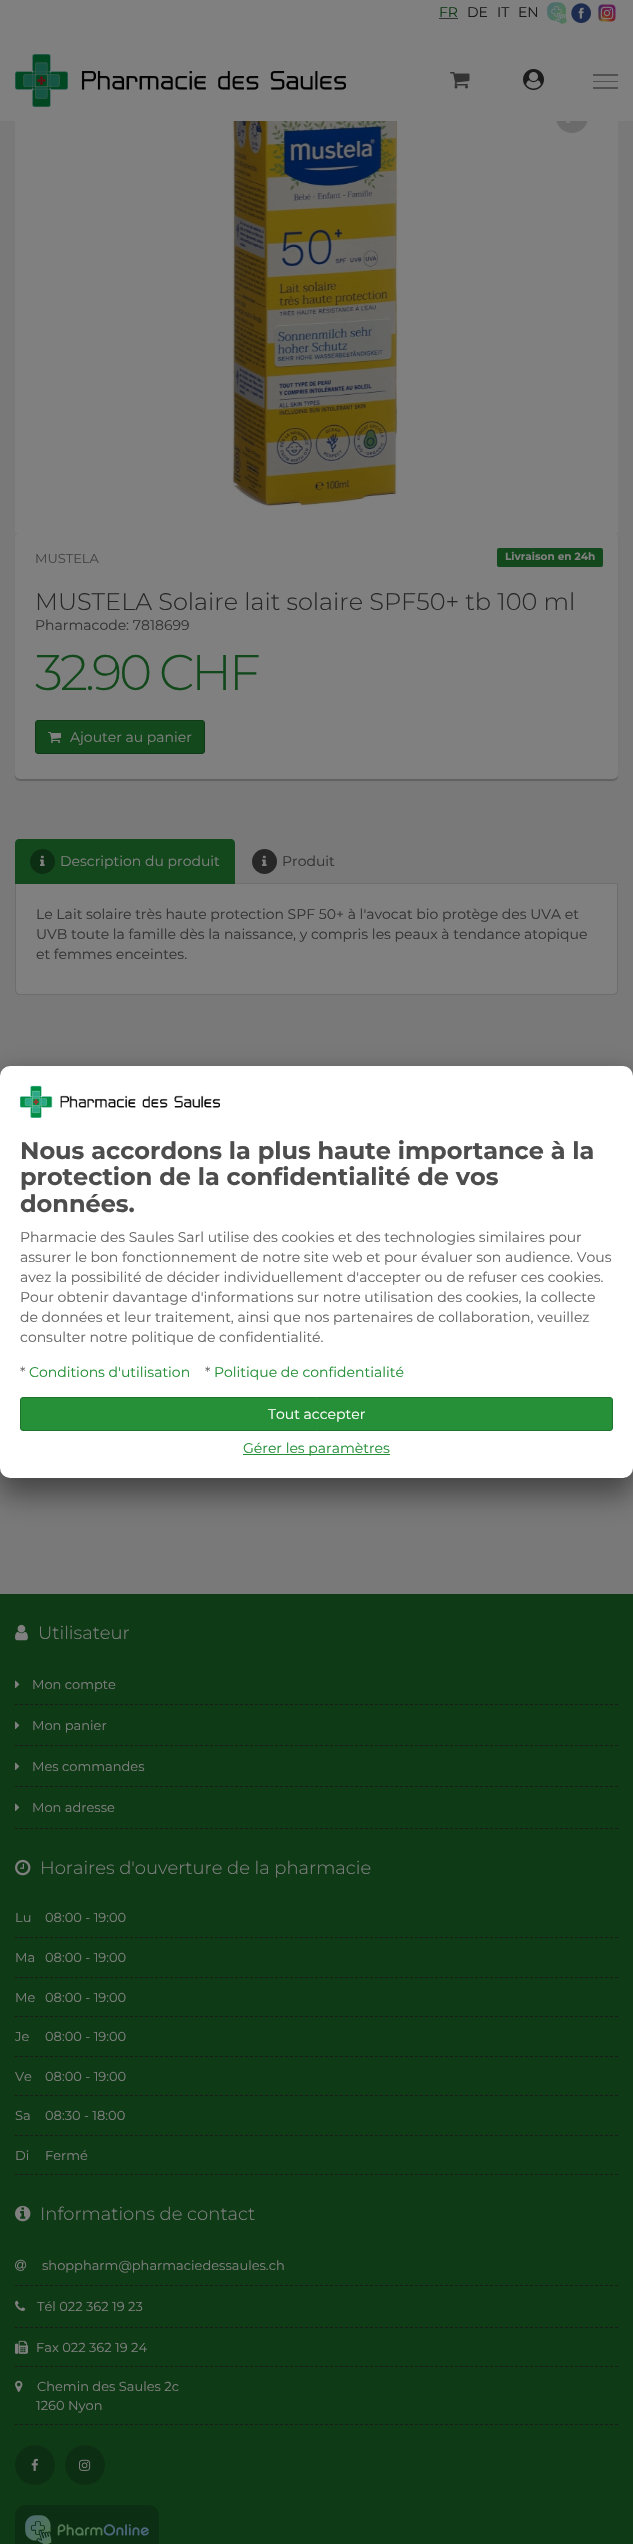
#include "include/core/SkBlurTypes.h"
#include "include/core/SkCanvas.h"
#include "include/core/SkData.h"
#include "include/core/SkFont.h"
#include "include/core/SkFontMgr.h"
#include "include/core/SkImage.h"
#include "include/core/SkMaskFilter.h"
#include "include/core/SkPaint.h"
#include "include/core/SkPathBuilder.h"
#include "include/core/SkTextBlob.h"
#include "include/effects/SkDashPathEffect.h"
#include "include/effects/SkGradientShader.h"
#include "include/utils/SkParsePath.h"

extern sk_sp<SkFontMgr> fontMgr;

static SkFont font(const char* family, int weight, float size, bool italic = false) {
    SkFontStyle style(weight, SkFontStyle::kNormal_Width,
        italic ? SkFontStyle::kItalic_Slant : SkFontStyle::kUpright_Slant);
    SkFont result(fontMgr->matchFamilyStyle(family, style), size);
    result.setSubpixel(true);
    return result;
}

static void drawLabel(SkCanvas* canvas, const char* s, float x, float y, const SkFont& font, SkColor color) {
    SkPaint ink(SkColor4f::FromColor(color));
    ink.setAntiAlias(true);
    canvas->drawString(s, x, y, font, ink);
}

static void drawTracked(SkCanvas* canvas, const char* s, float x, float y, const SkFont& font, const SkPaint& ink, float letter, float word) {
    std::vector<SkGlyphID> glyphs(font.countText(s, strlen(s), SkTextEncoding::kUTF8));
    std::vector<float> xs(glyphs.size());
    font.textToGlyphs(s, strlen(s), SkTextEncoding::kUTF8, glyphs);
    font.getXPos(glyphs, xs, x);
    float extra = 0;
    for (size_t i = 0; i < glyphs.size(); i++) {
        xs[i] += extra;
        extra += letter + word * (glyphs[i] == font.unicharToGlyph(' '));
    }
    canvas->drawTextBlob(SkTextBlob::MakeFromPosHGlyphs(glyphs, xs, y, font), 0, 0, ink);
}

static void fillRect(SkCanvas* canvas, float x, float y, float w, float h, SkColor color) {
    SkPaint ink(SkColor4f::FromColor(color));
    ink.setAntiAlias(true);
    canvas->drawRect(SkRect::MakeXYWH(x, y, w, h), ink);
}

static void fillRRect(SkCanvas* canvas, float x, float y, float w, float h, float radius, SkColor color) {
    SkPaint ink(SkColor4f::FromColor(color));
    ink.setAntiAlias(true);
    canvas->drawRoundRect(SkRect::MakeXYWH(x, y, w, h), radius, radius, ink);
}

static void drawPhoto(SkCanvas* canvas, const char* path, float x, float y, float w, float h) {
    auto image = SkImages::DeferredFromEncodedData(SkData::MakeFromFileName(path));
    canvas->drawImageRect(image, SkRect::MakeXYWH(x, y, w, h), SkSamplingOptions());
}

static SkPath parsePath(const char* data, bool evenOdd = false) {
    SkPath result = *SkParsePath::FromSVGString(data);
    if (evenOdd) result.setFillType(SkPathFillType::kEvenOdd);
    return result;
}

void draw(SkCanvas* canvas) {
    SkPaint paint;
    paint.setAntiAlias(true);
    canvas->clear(0xFF797979);
    fillRect(canvas, 15, 121, 603, 412, 0xFF808080);
    paint.setColor(0xFF6B6B6B);
    canvas->drawCircle(572, 117, 16, paint);
    fillRect(canvas, 0, 0, 633, 121, 0xFF808080);
    SkFont font1 = font("Montserrat", 400, 14);
    drawLabel(canvas, "FR", 439, 17, font1, 0xFF0F3A16);
    fillRect(canvas, 439, 18, 19, 1, 0xFF333333);
    drawLabel(canvas, "DE", 467, 17, font1, 0xFF1A1A1A);
    drawLabel(canvas, "IT", 497, 17, font1, 0xFF1A1A1A);
    drawLabel(canvas, "EN", 518, 17, font1, 0xFF1A1A1A);
    drawPhoto(canvas, "assets/img1.png", 547, 2, 20, 22);
    drawPhoto(canvas, "assets/img2.png", 571, 3, 20, 20);
    drawPhoto(canvas, "assets/img3.png", 598, 4, 18, 18);
    drawPhoto(canvas, "assets/img4.png", 15, 54, 331, 53);
    drawPhoto(canvas, "assets/img5.png", 450, 72, 20, 17);
    drawPhoto(canvas, "assets/img6.png", 523, 69, 21, 21);
    fillRect(canvas, 593, 74, 25, 2, 0xFF514F4F);
    fillRect(canvas, 593, 81, 25, 1, 0xFF514F4F);
    fillRect(canvas, 593, 87, 25, 2, 0xFF514F4F);
    drawPhoto(canvas, "assets/img7.png", 566, 121, 5, 2);
    drawPhoto(canvas, "assets/img8.png", 231, 121, 167, 385);
    paint.setColor(0x33000000);
    paint.setMaskFilter(SkMaskFilter::MakeBlur(kNormal_SkBlurStyle, 0.5f));
    canvas->drawRoundRect(SkRect::MakeXYWH(15, 535, 603, 246), 5, 5, paint);
    paint.setMaskFilter(nullptr);
    fillRRect(canvas, 15, 533, 603, 246, 5, 0xFF808080);
    SkFont font2 = font("Montserrat", 400, 13);
    drawLabel(canvas, "MUSTELA", 35, 563, font2, 0xFF434343);
    fillRRect(canvas, 497, 548, 106, 19, 2, 0xFF13481C);
    SkFont font3 = font("Montserrat", 700, 10.5f);
    drawLabel(canvas, "Livraison en 24h", 505, 560, font3, 0xFF808080);
    SkFont font4 = font("Montserrat", 300, 24);
    drawLabel(canvas, "MUSTELA Solaire lait solaire SPF50+ tb 100 ml", 35, 610, font4, 0xFF272727);
    drawLabel(canvas, "Pharmacode: 7818699", 35, 630, font1, 0xFF333333);
    SkFont font5 = font("Montserrat", 300, 50);
    paint.setColor(0xFF13481C);
    drawTracked(canvas, "32.90 CHF", 35, 690, font5, paint, -3, 0);
    canvas->drawRoundRect(SkRect::MakeXYWH(35.5f, 720.5f, 169, 33), 2.5f, 2.5f, paint);
    paint.setStroke(true);
    paint.setStrokeWidth(1);
    paint.setColor(0xFF0F3A16);
    canvas->drawRoundRect(SkRect::MakeXYWH(35.5f, 720.5f, 169, 33), 2.5f, 2.5f, paint);
    drawPhoto(canvas, "assets/img9.png", 48, 732, 13, 11);
    drawLabel(canvas, "Ajouter au panier", 70, 742, font1, 0xFF808080);
    fillRect(canvas, 235, 883, 383, 1, 0xFF6F6F6F);
    paint.setStroke(false);
    paint.setColor(0xFF13481C);
    canvas->drawPath(parsePath("M19 839H231C233 839 235 841 235 843V884H15V843C15 841 17 839 19 839Z"), paint);
    paint.setColor(0xFF0C2E12);
    canvas->drawCircle(42.5f, 861.5f, 12.5f, paint);
    drawPhoto(canvas, "assets/img10.png", 40, 855, 5, 11);
    drawLabel(canvas, "Description du produit", 60, 866, font1, 0xFF808080);
    paint.setColor(0xFF272727);
    canvas->drawCircle(264.5f, 861.5f, 12.5f, paint);
    drawPhoto(canvas, "assets/img11.png", 262, 855, 5, 11);
    drawLabel(canvas, "Produit", 282, 866, font1, 0xFF333333);
    paint.setColor(0xFF808080);
    canvas->drawPath(parsePath("M15 884H618V990C618 993 616 995 613 995H20C17 995 15 993 15 990Z"), paint);
    paint.setColor(0xFF6D6D6D);
    canvas->drawPath(parsePath("M15 884H618V990C618 993 616 995 613 995H20C17 995 15 993 15 990ZM16 884H617V990C617 992 615 994 613 994H20C18 994 16 992 16 990Z", true), paint);
    drawLabel(canvas, "Le Lait solaire très haute protection SPF 50+ à l'avocat bio protège des UVA et", 36, 919, font1, 0xFF333333);
    drawLabel(canvas, "UVB toute la famille dès la naissance, y compris les peaux à tendance atopique", 36, 939, font1, 0xFF333333);
    drawLabel(canvas, "et femmes enceintes.", 36, 959, font1, 0xFF333333);
    paint.setColor(0x4D000000);
    paint.setMaskFilter(SkMaskFilter::MakeBlur(kNormal_SkBlurStyle, 14));
    canvas->drawRoundRect(SkRect::MakeXYWH(0, 1086, 633, 412), 10, 10, paint);
    paint.setMaskFilter(nullptr);
    paint.setColor(0x38000000);
    paint.setMaskFilter(SkMaskFilter::MakeBlur(kNormal_SkBlurStyle, 13));
    canvas->drawRoundRect(SkRect::MakeXYWH(0, 1071, 633, 412), 10, 10, paint);
    paint.setMaskFilter(nullptr);
    fillRRect(canvas, 0, 1066, 633, 412, 10, 0xFFFFFFFF);
    drawPhoto(canvas, "assets/img12.png", 20, 1085, 200, 33);
    SkFont font6 = font("Montserrat", 700, 24);
    drawLabel(canvas, "Nous accordons la plus haute importance à la", 20, 1159, font6, 0xFF4D4D4D);
    drawLabel(canvas, "protection de la confidentialité de vos", 20, 1185, font6, 0xFF4D4D4D);
    drawLabel(canvas, "données.", 20, 1212, font6, 0xFF4D4D4D);
    drawLabel(canvas, "Pharmacie des Saules Sarl utilise des cookies et des technologies similaires pour", 20, 1242, font1, 0xFF666666);
    drawLabel(canvas, "assurer le bon fonctionnement de notre site web et pour évaluer son audience. Vous", 20, 1262, font1, 0xFF666666);
    drawLabel(canvas, "avez la possibilité de décider individuellement d'accepter ou de refuser ces cookies.", 20, 1282, font1, 0xFF666666);
    drawLabel(canvas, "Pour obtenir davantage d'informations sur notre utilisation des cookies, la collecte", 20, 1302, font1, 0xFF666666);
    drawLabel(canvas, "de données et leur traitement, ainsi que nos partenaires de collaboration, veuillez", 20, 1322, font1, 0xFF666666);
    drawLabel(canvas, "consulter notre politique de confidentialité.", 20, 1342, font1, 0xFF666666);
    drawLabel(canvas, "*", 20, 1377, font1, 0xFF666666);
    drawLabel(canvas, "Conditions d'utilisation", 29, 1377, font1, 0xFF259038);
    drawLabel(canvas, "*", 205, 1377, font1, 0xFF666666);
    drawLabel(canvas, "Politique de confidentialité", 214, 1377, font1, 0xFF259038);
    paint.setColor(0xFF259038);
    canvas->drawRoundRect(SkRect::MakeXYWH(20.5f, 1397.5f, 592, 33), 2.5f, 2.5f, paint);
    paint.setStroke(true);
    paint.setColor(0xFF1D732C);
    canvas->drawRoundRect(SkRect::MakeXYWH(20.5f, 1397.5f, 592, 33), 2.5f, 2.5f, paint);
    drawLabel(canvas, "Tout accepter", 268, 1419, font1, 0xFFFFFFFF);
    fillRect(canvas, 243, 1454, 147, 1, 0xFF259038);
    drawLabel(canvas, "Gérer les paramètres", 243, 1453, font1, 0xFF259038);
    fillRect(canvas, 0, 1594, 633, 950, 0xFF0F3A16);
    drawPhoto(canvas, "assets/img13.png", 15, 1624, 13, 17);
    SkFont font7 = font("Montserrat", 300, 18);
    drawLabel(canvas, "Utilisateur", 38, 1639, font7, 0xFF808080);
    paint.setColor(0xFF1A1A1A);
    paint.setPathEffect(SkDashPathEffect::Make({{3, 2}}, 0));
    canvas->drawPath(parsePath("M15 1704.5H618"), paint);
    paint.setPathEffect(nullptr);
    drawPhoto(canvas, "assets/img14.png", 15, 1680, 5, 8);
    drawLabel(canvas, "Mon compte", 32, 1689, font2, 0xFF808080);
    paint.setPathEffect(SkDashPathEffect::Make({{3, 2}}, 0));
    canvas->drawPath(parsePath("M15 1745.5H618"), paint);
    paint.setPathEffect(nullptr);
    drawPhoto(canvas, "assets/img14.png", 15, 1721, 5, 8);
    drawLabel(canvas, "Mon panier", 32, 1730, font2, 0xFF808080);
    paint.setPathEffect(SkDashPathEffect::Make({{3, 2}}, 0));
    canvas->drawPath(parsePath("M15 1786.5H618"), paint);
    paint.setPathEffect(nullptr);
    drawPhoto(canvas, "assets/img14.png", 15, 1762, 5, 8);
    drawLabel(canvas, "Mes commandes", 32, 1771, font2, 0xFF808080);
    paint.setPathEffect(SkDashPathEffect::Make({{3, 2}}, 0));
    canvas->drawPath(parsePath("M15 1828.5H618"), paint);
    paint.setPathEffect(nullptr);
    drawPhoto(canvas, "assets/img14.png", 15, 1803, 5, 8);
    drawLabel(canvas, "Mon adresse", 32, 1812, font2, 0xFF808080);
    drawPhoto(canvas, "assets/img15.png", 15, 1859, 16, 17);
    drawLabel(canvas, "Horaires d'ouverture de la pharmacie", 40, 1874, font7, 0xFF808080);
    paint.setPathEffect(SkDashPathEffect::Make({{3, 2}}, 0));
    canvas->drawPath(parsePath("M15 1937.5H618"), paint);
    paint.setPathEffect(nullptr);
    drawLabel(canvas, "Lu", 15, 1922, font2, 0xFF808080);
    drawLabel(canvas, "08:00 - 19:00", 45, 1922, font2, 0xFF808080);
    paint.setPathEffect(SkDashPathEffect::Make({{3, 2}}, 0));
    canvas->drawPath(parsePath("M15 1977.5H618"), paint);
    paint.setPathEffect(nullptr);
    drawLabel(canvas, "Ma", 15, 1962, font2, 0xFF808080);
    drawLabel(canvas, "08:00 - 19:00", 45, 1962, font2, 0xFF808080);
    paint.setPathEffect(SkDashPathEffect::Make({{3, 2}}, 0));
    canvas->drawPath(parsePath("M15 2016.5H618"), paint);
    paint.setPathEffect(nullptr);
    drawLabel(canvas, "Me", 15, 2002, font2, 0xFF808080);
    drawLabel(canvas, "08:00 - 19:00", 45, 2002, font2, 0xFF808080);
    paint.setPathEffect(SkDashPathEffect::Make({{3, 2}}, 0));
    canvas->drawPath(parsePath("M15 2056.5H618"), paint);
    paint.setPathEffect(nullptr);
    drawLabel(canvas, "Je", 15, 2041, font2, 0xFF808080);
    drawLabel(canvas, "08:00 - 19:00", 45, 2041, font2, 0xFF808080);
    paint.setPathEffect(SkDashPathEffect::Make({{3, 2}}, 0));
    canvas->drawPath(parsePath("M15 2095.5H618"), paint);
    paint.setPathEffect(nullptr);
    drawLabel(canvas, "Ve", 15, 2081, font2, 0xFF808080);
    drawLabel(canvas, "08:00 - 19:00", 45, 2081, font2, 0xFF808080);
    paint.setPathEffect(SkDashPathEffect::Make({{3, 2}}, 0));
    canvas->drawPath(parsePath("M15 2135.5H618"), paint);
    paint.setPathEffect(nullptr);
    drawLabel(canvas, "Sa", 15, 2120, font2, 0xFF808080);
    drawLabel(canvas, "08:30 - 18:00", 45, 2120, font2, 0xFF808080);
    paint.setPathEffect(SkDashPathEffect::Make({{3, 2}}, 0));
    canvas->drawPath(parsePath("M15 2174.5H618"), paint);
    paint.setPathEffect(nullptr);
    drawLabel(canvas, "Di", 15, 2160, font2, 0xFF808080);
    drawLabel(canvas, "Fermé", 45, 2160, font2, 0xFF808080);
    drawPhoto(canvas, "assets/img16.png", 15, 2205, 16, 17);
    drawLabel(canvas, "Informations de contact", 40, 2220, font7, 0xFF808080);
    paint.setPathEffect(SkDashPathEffect::Make({{3, 2}}, 0));
    canvas->drawPath(parsePath("M15 2285.5H618"), paint);
    paint.setPathEffect(nullptr);
    drawPhoto(canvas, "assets/img17.png", 15, 2259, 12, 12);
    drawLabel(canvas, "shoppharm@pharmaciedessaules.ch", 42, 2270, font2, 0xFF808080);
    paint.setPathEffect(SkDashPathEffect::Make({{3, 2}}, 0));
    canvas->drawPath(parsePath("M15 2327.5H618"), paint);
    paint.setPathEffect(nullptr);
    drawPhoto(canvas, "assets/img18.png", 15, 2300, 11, 11);
    drawLabel(canvas, "Tél 022 362 19 23", 37, 2311, font2, 0xFF808080);
    paint.setPathEffect(SkDashPathEffect::Make({{3, 2}}, 0));
    canvas->drawPath(parsePath("M15 2366.5H618"), paint);
    paint.setPathEffect(nullptr);
    drawPhoto(canvas, "assets/img19.png", 15, 2340, 13, 14);
    drawLabel(canvas, "Fax 022 362 19 24", 36, 2352, font2, 0xFF808080);
    paint.setPathEffect(SkDashPathEffect::Make({{3, 2}}, 0));
    canvas->drawPath(parsePath("M15 2424.5H618"), paint);
    paint.setPathEffect(nullptr);
    drawPhoto(canvas, "assets/img20.png", 15, 2380, 8, 12);
    drawLabel(canvas, "Chemin des Saules 2c", 37, 2391, font2, 0xFF808080);
    drawLabel(canvas, "1260 Nyon", 36, 2410, font2, 0xFF808080);
    paint.setStroke(false);
    paint.setColor(0xFF0C2E12);
    canvas->drawCircle(35, 2465, 20, paint);
    drawPhoto(canvas, "assets/img21.png", 31, 2458, 7, 13);
    canvas->drawCircle(85, 2465, 20, paint);
    drawPhoto(canvas, "assets/img22.png", 79, 2459, 12, 12);
    fillRRect(canvas, 15, 2505, 144, 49, 10, 0xFF0C2E12);
    drawPhoto(canvas, "assets/img23.png", 25, 2515, 124, 29);
}
